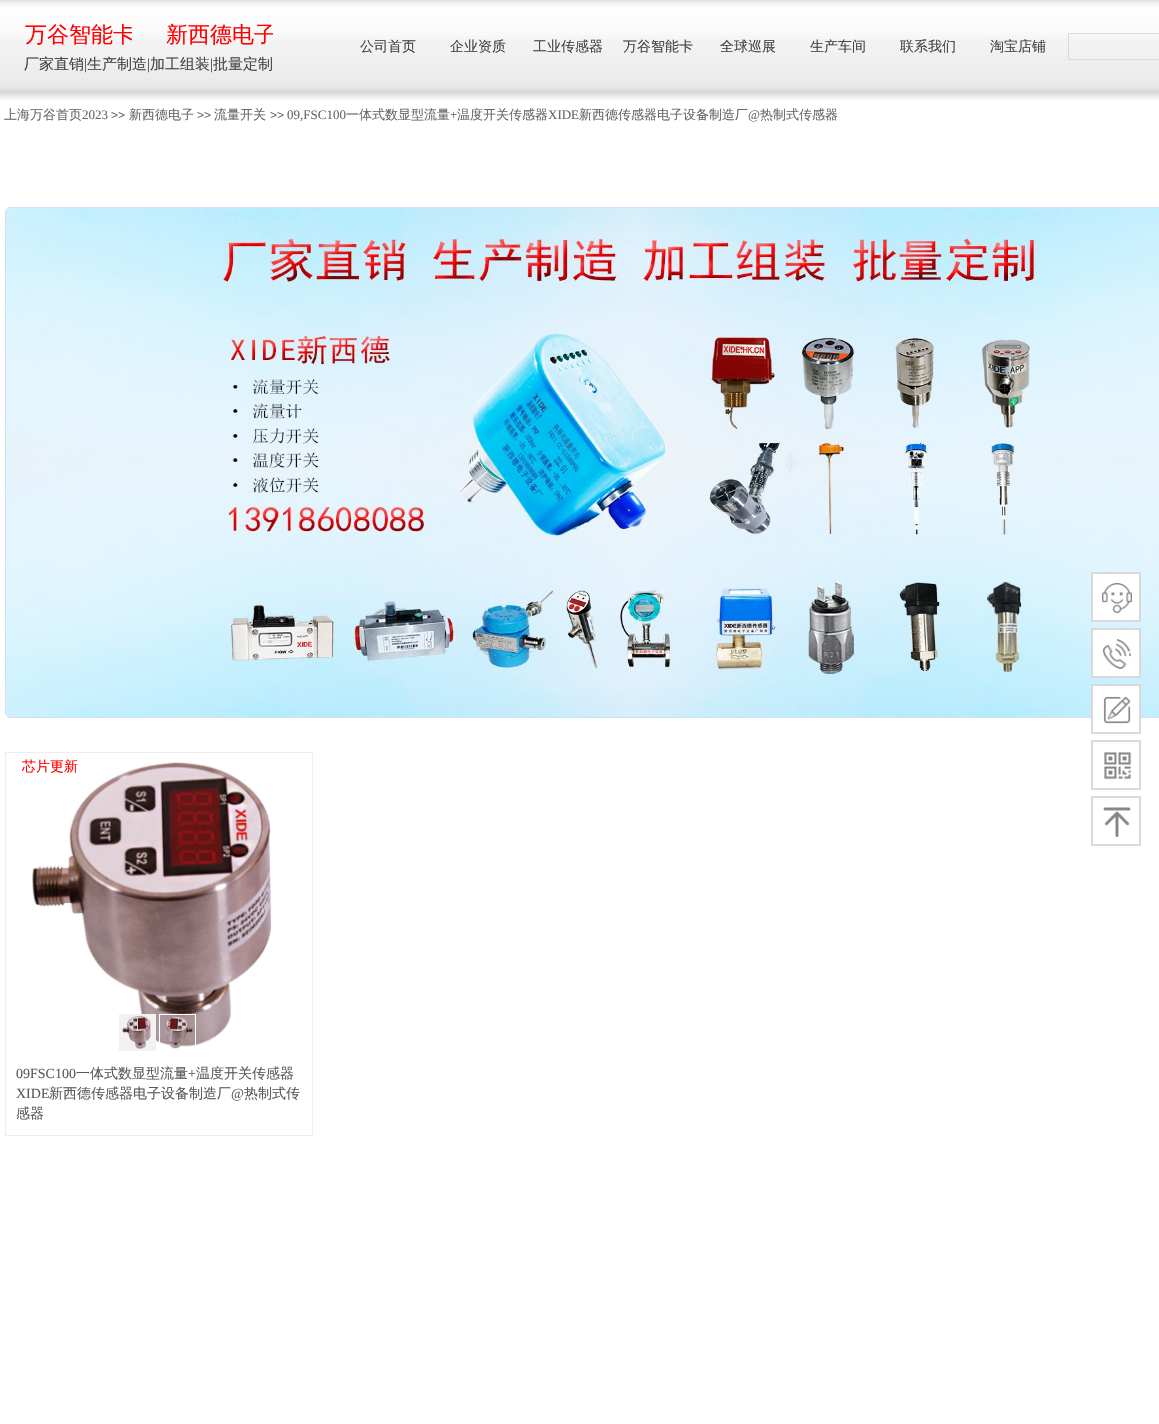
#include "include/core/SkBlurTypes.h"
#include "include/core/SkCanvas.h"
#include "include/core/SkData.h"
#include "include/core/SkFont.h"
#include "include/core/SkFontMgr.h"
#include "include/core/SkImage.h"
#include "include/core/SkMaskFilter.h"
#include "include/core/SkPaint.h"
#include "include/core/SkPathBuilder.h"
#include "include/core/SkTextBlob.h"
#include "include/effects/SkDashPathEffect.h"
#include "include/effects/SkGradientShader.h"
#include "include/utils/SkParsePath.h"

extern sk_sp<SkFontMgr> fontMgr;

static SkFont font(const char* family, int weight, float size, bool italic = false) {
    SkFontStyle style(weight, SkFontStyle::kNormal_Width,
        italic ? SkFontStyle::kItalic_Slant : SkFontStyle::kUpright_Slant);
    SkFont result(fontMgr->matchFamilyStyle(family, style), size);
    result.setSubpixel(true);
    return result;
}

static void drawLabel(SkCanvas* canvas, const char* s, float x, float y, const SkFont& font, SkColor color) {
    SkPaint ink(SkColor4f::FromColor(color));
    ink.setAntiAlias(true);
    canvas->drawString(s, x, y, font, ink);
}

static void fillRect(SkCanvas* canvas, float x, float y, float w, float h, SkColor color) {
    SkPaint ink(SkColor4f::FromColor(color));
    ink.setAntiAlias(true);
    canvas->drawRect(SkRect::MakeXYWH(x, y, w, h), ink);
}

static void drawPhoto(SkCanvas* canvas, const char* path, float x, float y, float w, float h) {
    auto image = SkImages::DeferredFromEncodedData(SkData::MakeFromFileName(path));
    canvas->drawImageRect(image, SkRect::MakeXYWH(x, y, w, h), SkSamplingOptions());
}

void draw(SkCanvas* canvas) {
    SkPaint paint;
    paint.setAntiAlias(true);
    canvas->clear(0xFFFFFFFF);
    drawPhoto(canvas, "assets/img1.png", 0, 0, 1159, 100);
    canvas->save();
    canvas->clipRect(SkRect::MakeXYWH(25, 18, 107, 33));
    SkFont font1 = font("WenQuanYi Zen Hei", 500, 22);
    drawLabel(canvas, "万谷智能卡", 25, 42, font1, 0xFFFF0000);
    canvas->restore();
    canvas->save();
    canvas->clipRect(SkRect::MakeXYWH(166, 18, 107, 33));
    drawLabel(canvas, "新西德电子", 166, 42, font1, 0xFFFF0000);
    canvas->restore();
    SkFont font2 = font("WenQuanYi Zen Hei", 500, 14);
    drawLabel(canvas, "公司首页", 360, 51, font2, 0xFF434343);
    drawLabel(canvas, "企业资质", 450, 51, font2, 0xFF434343);
    drawLabel(canvas, "工业传感器", 533, 51, font2, 0xFF434343);
    drawLabel(canvas, "万谷智能卡", 623, 51, font2, 0xFF434343);
    drawLabel(canvas, "全球巡展", 720, 51, font2, 0xFF434343);
    drawLabel(canvas, "生产车间", 810, 51, font2, 0xFF434343);
    drawLabel(canvas, "联系我们", 900, 51, font2, 0xFF434343);
    drawLabel(canvas, "淘宝店铺", 990, 51, font2, 0xFF434343);
    paint.setStroke(true);
    paint.setStrokeWidth(1);
    paint.setColor(0xFFD9D9D9);
    canvas->drawRoundRect(SkRect::MakeXYWH(1068.5f, 33.5f, 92, 26), 0.5f, 0.5f, paint);
    SkFont font3 = font("WenQuanYi Zen Hei", 500, 15);
    drawLabel(canvas, "厂家直销", 24, 69, font3, 0xFF434343);
    SkFont font4 = font("Liberation Serif", 400, 15);
    drawLabel(canvas, "|", 84, 69, font4, 0xFF434343);
    drawLabel(canvas, "生产制造", 87, 69, font3, 0xFF434343);
    drawLabel(canvas, "|", 147, 69, font4, 0xFF434343);
    drawLabel(canvas, "加工组装", 150, 69, font3, 0xFF434343);
    drawLabel(canvas, "|", 210, 69, font4, 0xFF434343);
    drawLabel(canvas, "批量定制", 213, 69, font3, 0xFF434343);
    SkFont font5 = font("WenQuanYi Zen Hei", 500, 13);
    drawLabel(canvas, "上海万谷首页", 4, 119, font5, 0xFF666666);
    SkFont font6 = font("Liberation Serif", 400, 13);
    drawLabel(canvas, "2023", 82, 119, font6, 0xFF666666);
    SkFont font7 = font("Liberation Sans", 400, 12);
    drawLabel(canvas, ">>", 111, 119, font7, 0xFF666666);
    drawLabel(canvas, "新西德电子", 129, 119, font5, 0xFF666666);
    drawLabel(canvas, ">>", 197, 119, font7, 0xFF666666);
    drawLabel(canvas, "流量开关", 214, 119, font5, 0xFF666666);
    drawLabel(canvas, ">>", 270, 119, font7, 0xFF666666);
    drawLabel(canvas, "09,FSC100", 287, 119, font6, 0xFF666666);
    drawLabel(canvas, "一体式数显型流量", 346, 119, font5, 0xFF666666);
    drawLabel(canvas, "+", 450, 119, font6, 0xFF666666);
    drawLabel(canvas, "温度开关传感器", 457, 119, font5, 0xFF666666);
    drawLabel(canvas, "XIDE", 548, 119, font6, 0xFF666666);
    drawLabel(canvas, "新西德传感器电子设备制造厂", 579, 119, font5, 0xFF666666);
    drawLabel(canvas, "@", 748, 119, font6, 0xFF666666);
    drawLabel(canvas, "热制式传感器", 760, 119, font5, 0xFF666666);
    paint.setColor(0xFFCFE2F3);
    canvas->drawRoundRect(SkRect::MakeXYWH(5.5f, 207.5f, 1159, 510), 4.5f, 4.5f, paint);
    drawPhoto(canvas, "assets/img2.png", 6, 208, 1153, 509);
    paint.setColor(0xFFEEEEEE);
    canvas->drawRect(SkRect::MakeXYWH(5.5f, 752.5f, 307, 383), paint);
    drawPhoto(canvas, "assets/img3.png", 32, 762, 240, 285);
    drawLabel(canvas, "芯片更新", 22, 771, font2, 0xFFFF0000);
    fillRect(canvas, 119, 1014, 37, 37, 0xFFF2F2F2);
    drawPhoto(canvas, "assets/img4.png", 122, 1015, 29, 34);
    paint.setColor(0xFFFFFFFF);
    canvas->drawRect(SkRect::MakeXYWH(159.5f, 1014.5f, 36, 36), paint);
    drawPhoto(canvas, "assets/img5.png", 165, 1016, 28, 33);
    SkFont font8 = font("Liberation Serif", 400, 14);
    drawLabel(canvas, "09FSC100", 16, 1078, font8, 0xFF5A5A5A);
    drawLabel(canvas, "一体式数显型流量", 76, 1078, font2, 0xFF5A5A5A);
    drawLabel(canvas, "+", 188, 1078, font8, 0xFF5A5A5A);
    drawLabel(canvas, "温度开关传感器", 196, 1078, font2, 0xFF5A5A5A);
    drawLabel(canvas, "XIDE", 16, 1098, font8, 0xFF5A5A5A);
    drawLabel(canvas, "新西德传感器电子设备制造厂", 49, 1098, font2, 0xFF5A5A5A);
    drawLabel(canvas, "@", 231, 1098, font8, 0xFF5A5A5A);
    drawLabel(canvas, "热制式传", 244, 1098, font2, 0xFF5A5A5A);
    drawLabel(canvas, "感器", 16, 1118, font2, 0xFF5A5A5A);
    paint.setStroke(false);
    canvas->drawRect(SkRect::MakeXYWH(1092, 573, 48, 48), paint);
    paint.setStroke(true);
    paint.setStrokeWidth(2);
    paint.setColor(0xFFD9D9D9);
    canvas->drawRect(SkRect::MakeXYWH(1092, 573, 48, 48), paint);
    drawPhoto(canvas, "assets/img6.png", 1102, 583, 30, 30);
    paint.setStroke(false);
    paint.setColor(0xFFFFFFFF);
    canvas->drawRect(SkRect::MakeXYWH(1092, 629, 48, 48), paint);
    paint.setStroke(true);
    paint.setColor(0xFFD9D9D9);
    canvas->drawRect(SkRect::MakeXYWH(1092, 629, 48, 48), paint);
    drawPhoto(canvas, "assets/img7.png", 1103, 639, 29, 30);
    fillRect(canvas, 1093, 686, 46, 32, 0xFFFFFFFF);
    canvas->drawRect(SkRect::MakeXYWH(1092, 685, 48, 48), paint);
    drawPhoto(canvas, "assets/img8.png", 1103, 696, 28, 28);
    canvas->drawRect(SkRect::MakeXYWH(1092, 741, 48, 48), paint);
    drawPhoto(canvas, "assets/img9.png", 1104, 752, 28, 28);
    canvas->drawRect(SkRect::MakeXYWH(1092, 797, 48, 48), paint);
    drawPhoto(canvas, "assets/img10.png", 1103, 807, 28, 30);
}
